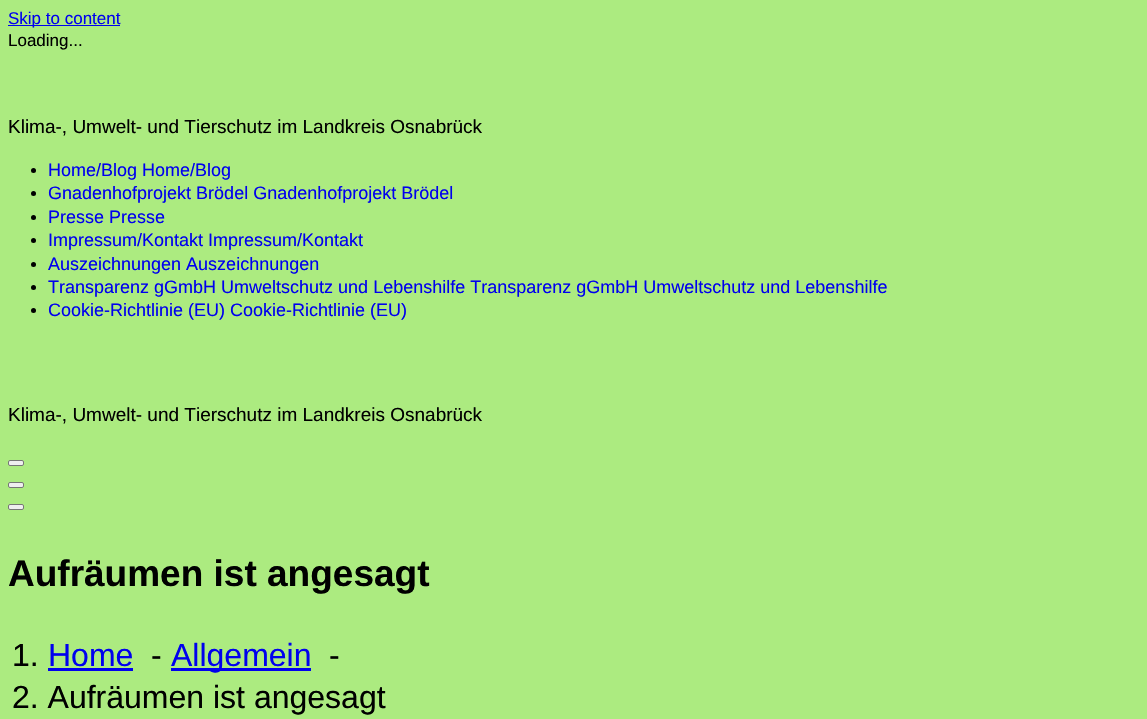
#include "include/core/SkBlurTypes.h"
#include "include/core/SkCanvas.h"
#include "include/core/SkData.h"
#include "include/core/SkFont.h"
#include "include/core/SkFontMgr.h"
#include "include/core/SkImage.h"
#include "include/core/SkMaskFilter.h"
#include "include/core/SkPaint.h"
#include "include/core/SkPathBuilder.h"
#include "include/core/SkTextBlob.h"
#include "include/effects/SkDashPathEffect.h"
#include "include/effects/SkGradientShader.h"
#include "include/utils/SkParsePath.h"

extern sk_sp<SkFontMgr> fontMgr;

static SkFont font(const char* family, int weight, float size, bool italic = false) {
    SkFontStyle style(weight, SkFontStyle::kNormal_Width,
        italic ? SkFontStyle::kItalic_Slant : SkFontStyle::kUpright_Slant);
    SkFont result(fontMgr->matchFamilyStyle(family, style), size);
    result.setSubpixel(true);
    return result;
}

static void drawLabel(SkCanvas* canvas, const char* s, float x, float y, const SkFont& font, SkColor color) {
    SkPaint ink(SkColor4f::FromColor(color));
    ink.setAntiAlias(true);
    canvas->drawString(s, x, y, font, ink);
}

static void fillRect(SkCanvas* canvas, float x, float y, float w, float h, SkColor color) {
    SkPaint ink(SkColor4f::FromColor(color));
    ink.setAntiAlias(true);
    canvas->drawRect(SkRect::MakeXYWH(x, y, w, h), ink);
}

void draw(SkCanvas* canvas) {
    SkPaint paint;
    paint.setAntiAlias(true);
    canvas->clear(0xFFACEB80);
    fillRect(canvas, 8, 25, 112, 1, 0xFF0000EE);
    SkFont font1 = font("Liberation Sans", 400, 17);
    drawLabel(canvas, "Skip to content", 8, 24, font1, 0xFF0000EE);
    drawLabel(canvas, "Loading...", 8, 46, font1, 0xFF000000);
    SkFont font2 = font("Liberation Sans", 400, 19);
    drawLabel(canvas, "Klima-, Umwelt- und Tierschutz im Landkreis Osnabrück", 8, 133, font2, 0xFF000000);
    paint.setColor(0xFF000000);
    canvas->drawCircle(33.5f, 170.5f, 2.5f, paint);
    SkFont font3 = font("Liberation Sans", 400, 18);
    drawLabel(canvas, "Home/Blog Home/Blog", 48, 176, font3, 0xFF0000EE);
    canvas->drawCircle(33.5f, 193.5f, 2.5f, paint);
    drawLabel(canvas, "Gnadenhofprojekt Brödel Gnadenhofprojekt Brödel", 48, 199, font3, 0xFF0000EE);
    canvas->drawCircle(33.5f, 217.5f, 2.5f, paint);
    drawLabel(canvas, "Presse Presse", 48, 223, font3, 0xFF0000EE);
    canvas->drawCircle(33.5f, 240.5f, 2.5f, paint);
    drawLabel(canvas, "Impressum/Kontakt Impressum/Kontakt", 48, 246, font3, 0xFF0000EE);
    canvas->drawCircle(33.5f, 264.5f, 2.5f, paint);
    drawLabel(canvas, "Auszeichnungen Auszeichnungen", 48, 270, font3, 0xFF0000EE);
    canvas->drawCircle(33.5f, 287.5f, 2.5f, paint);
    drawLabel(canvas, "Transparenz gGmbH Umweltschutz und Lebenshilfe Transparenz gGmbH Umweltschutz und Lebenshilfe", 48, 293, font3, 0xFF0000EE);
    canvas->drawCircle(33.5f, 310.5f, 2.5f, paint);
    drawLabel(canvas, "Cookie-Richtlinie (EU) Cookie-Richtlinie (EU)", 48, 316, font3, 0xFF0000EE);
    drawLabel(canvas, "Klima-, Umwelt- und Tierschutz im Landkreis Osnabrück", 8, 421, font2, 0xFF000000);
    paint.setColor(0xFFEFEFEF);
    canvas->drawRoundRect(SkRect::MakeXYWH(8.5f, 460.5f, 15, 5), 1.5f, 1.5f, paint);
    paint.setStroke(true);
    paint.setStrokeWidth(1);
    paint.setColor(0xFF767676);
    canvas->drawRoundRect(SkRect::MakeXYWH(8.5f, 460.5f, 15, 5), 1.5f, 1.5f, paint);
    paint.setStroke(false);
    paint.setColor(0xFFEFEFEF);
    canvas->drawRoundRect(SkRect::MakeXYWH(8.5f, 482.5f, 15, 5), 1.5f, 1.5f, paint);
    paint.setStroke(true);
    paint.setColor(0xFF767676);
    canvas->drawRoundRect(SkRect::MakeXYWH(8.5f, 482.5f, 15, 5), 1.5f, 1.5f, paint);
    paint.setStroke(false);
    paint.setColor(0xFFEFEFEF);
    canvas->drawRoundRect(SkRect::MakeXYWH(8.5f, 504.5f, 15, 5), 1.5f, 1.5f, paint);
    paint.setStroke(true);
    paint.setColor(0xFF767676);
    canvas->drawRoundRect(SkRect::MakeXYWH(8.5f, 504.5f, 15, 5), 1.5f, 1.5f, paint);
    SkFont font4 = font("Liberation Sans", 700, 37);
    drawLabel(canvas, "Aufräumen ist angesagt", 8, 586, font4, 0xFF000000);
    SkFont font5 = font("Liberation Sans", 400, 32);
    drawLabel(canvas, "1.", 12, 666, font5, 0xFF000000);
    drawLabel(canvas, "Home", 48, 666, font5, 0xFF0000EE);
    fillRect(canvas, 48, 668, 85, 3, 0xFF0000EE);
    drawLabel(canvas, "-", 151, 666, font5, 0xFF000000);
    fillRect(canvas, 171, 668, 140, 3, 0xFF0000EE);
    drawLabel(canvas, "Allgemein", 171, 666, font5, 0xFF0000EE);
    drawLabel(canvas, "-", 329, 666, font5, 0xFF000000);
    drawLabel(canvas, "2. Aufräumen ist angesagt", 12, 708, font5, 0xFF000000);
}
